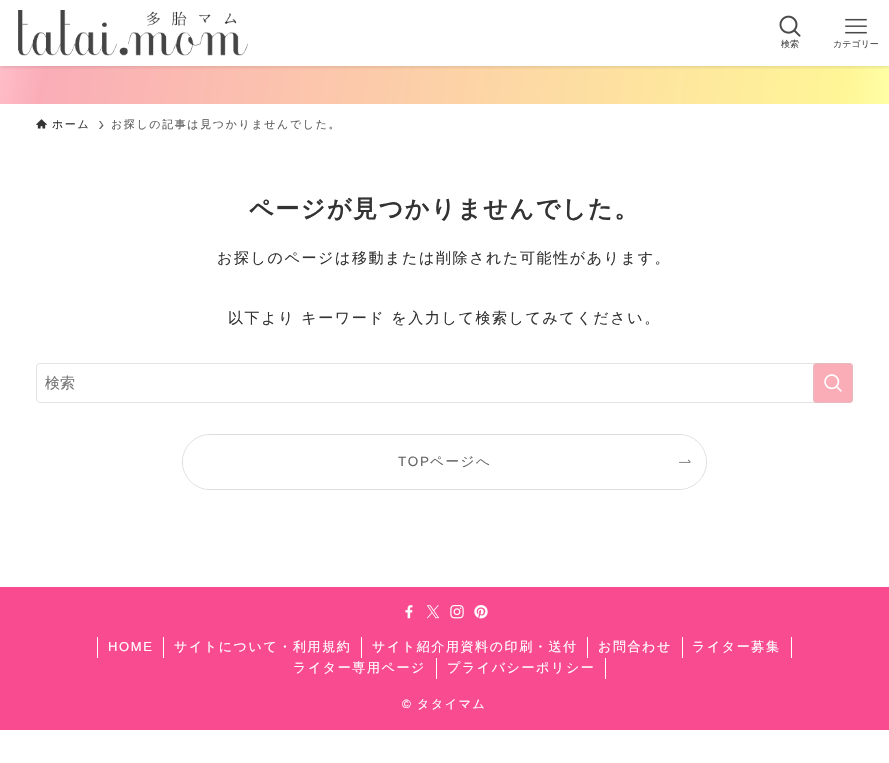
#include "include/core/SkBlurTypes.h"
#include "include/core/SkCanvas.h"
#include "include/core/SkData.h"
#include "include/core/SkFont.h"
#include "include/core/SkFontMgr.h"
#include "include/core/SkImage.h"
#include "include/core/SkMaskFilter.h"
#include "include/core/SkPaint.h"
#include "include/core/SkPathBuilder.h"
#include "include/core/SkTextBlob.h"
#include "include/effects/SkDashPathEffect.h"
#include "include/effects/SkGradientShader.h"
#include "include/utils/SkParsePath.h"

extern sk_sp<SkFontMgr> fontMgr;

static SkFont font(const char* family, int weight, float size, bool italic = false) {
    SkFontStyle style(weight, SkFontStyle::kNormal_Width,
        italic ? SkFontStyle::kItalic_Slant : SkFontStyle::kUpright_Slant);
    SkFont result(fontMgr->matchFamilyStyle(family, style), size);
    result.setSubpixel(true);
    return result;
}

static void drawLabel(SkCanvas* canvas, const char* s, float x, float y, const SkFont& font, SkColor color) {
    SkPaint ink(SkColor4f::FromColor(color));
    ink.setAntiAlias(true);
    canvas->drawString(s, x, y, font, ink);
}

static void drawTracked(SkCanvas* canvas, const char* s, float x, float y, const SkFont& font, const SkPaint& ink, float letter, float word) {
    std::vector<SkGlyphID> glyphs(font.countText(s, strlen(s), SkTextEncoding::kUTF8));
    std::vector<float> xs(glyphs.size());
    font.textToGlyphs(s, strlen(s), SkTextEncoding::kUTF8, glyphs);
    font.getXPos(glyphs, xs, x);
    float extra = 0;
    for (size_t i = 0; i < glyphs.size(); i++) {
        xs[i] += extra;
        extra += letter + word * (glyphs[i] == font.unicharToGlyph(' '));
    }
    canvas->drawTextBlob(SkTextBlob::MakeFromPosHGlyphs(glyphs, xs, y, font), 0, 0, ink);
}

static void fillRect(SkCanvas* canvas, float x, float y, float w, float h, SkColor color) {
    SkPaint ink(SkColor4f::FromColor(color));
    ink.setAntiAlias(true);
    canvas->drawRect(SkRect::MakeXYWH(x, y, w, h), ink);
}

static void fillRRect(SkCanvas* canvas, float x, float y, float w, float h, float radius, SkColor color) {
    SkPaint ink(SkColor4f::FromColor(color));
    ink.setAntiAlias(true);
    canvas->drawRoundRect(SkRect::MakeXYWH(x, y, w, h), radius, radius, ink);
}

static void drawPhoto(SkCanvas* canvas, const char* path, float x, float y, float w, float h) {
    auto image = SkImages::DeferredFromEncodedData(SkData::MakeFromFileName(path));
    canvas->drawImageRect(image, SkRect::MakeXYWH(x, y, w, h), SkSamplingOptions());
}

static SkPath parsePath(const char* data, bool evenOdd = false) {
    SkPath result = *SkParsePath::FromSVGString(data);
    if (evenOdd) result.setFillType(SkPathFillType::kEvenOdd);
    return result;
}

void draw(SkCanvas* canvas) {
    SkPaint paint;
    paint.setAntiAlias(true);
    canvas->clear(0xFFFFFFFF);
    {
        const SkColor colors[] = {0xFFFFBEC9, 0xFFFAADB7, 0xFFFFF697, 0xFFFFFFA6};
        const float stops[] = {0, 0.05f, 0.95f, 1};
        const SkPoint ends[] = {{10, 8}, {879, 162}};
        paint.setShader(SkGradientShader::MakeLinear(ends, colors, stops, 4, SkTileMode::kClamp));
        paint.setAlpha(255);
    }
    canvas->drawRect(SkRect::MakeXYWH(0, 66, 889, 38), paint);
    canvas->save();
    canvas->clipRect(SkRect::MakeXYWH(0, 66, 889, 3));
    paint.setShader(nullptr);
    paint.setColor(0x1F000000);
    paint.setMaskFilter(SkMaskFilter::MakeBlur(kNormal_SkBlurStyle, 2));
    canvas->drawRect(SkRect::MakeXYWH(0, 1, 889, 66), paint);
    paint.setMaskFilter(nullptr);
    canvas->restore();
    drawPhoto(canvas, "assets/img1.png", 18, 10, 230, 46);
    drawPhoto(canvas, "assets/img2.png", 779, 15, 22, 22);
    SkFont font1 = font("WenQuanYi Zen Hei", 500, 9);
    drawLabel(canvas, "検索", 781, 47, font1, 0xFF494949);
    drawPhoto(canvas, "assets/img3.png", 845, 18, 22, 16);
    drawLabel(canvas, "カテゴリー", 833, 47, font1, 0xFF494949);
    drawPhoto(canvas, "assets/img4.png", 36, 119, 11, 10);
    SkFont font2 = font("WenQuanYi Zen Hei", 500, 11);
    paint.setColor(0xFF333333);
    drawTracked(canvas, "ホーム", 52, 128, font2, paint, 1.6f, 0);
    paint.setColor(0xFF5C5C5C);
    canvas->drawPath(parsePath("M100.5 121H99L102 125L99 129H100.5L103.5 125.5Z"), paint);
    drawTracked(canvas, "お探しの記事は見つかりませんでした。", 111, 128, font2, paint, 1.6f, 0);
    SkFont font3 = font("WenQuanYi Zen Hei", 700, 24);
    paint.setColor(0xFF333333);
    drawTracked(canvas, "ページが見つかりませんでした。", 249, 217, font3, paint, 1.6f, 0);
    SkFont font4 = font("WenQuanYi Zen Hei", 500, 15);
    drawTracked(canvas, "お探しのページは移動または削除された可能性があります。", 217, 263, font4, paint, 1.6f, 0);
    drawTracked(canvas, "以下より キーワード を入力して検索してみてください。", 228, 323, font4, paint, 1.6f, 0);
    paint.setStroke(true);
    paint.setStrokeWidth(1);
    paint.setColor(0xFFE3E3E3);
    canvas->drawRoundRect(SkRect::MakeXYWH(36.5f, 363.5f, 816, 39), 3.5f, 3.5f, paint);
    drawLabel(canvas, "検索", 45, 388, font4, 0xFF757575);
    fillRRect(canvas, 813, 363, 40, 40, 4, 0xFFFAADB7);
    paint.setColor(0x80C7C7C7);
    canvas->drawRoundRect(SkRect::MakeXYWH(813.5f, 363.5f, 39, 39), 3.5f, 3.5f, paint);
    drawPhoto(canvas, "assets/img5.png", 824, 374, 18, 18);
    paint.setColor(0xFFDCDCDC);
    canvas->drawRoundRect(SkRect::MakeXYWH(182.5f, 434.5f, 524, 55), 27.5f, 27.5f, paint);
    fillRRect(canvas, 183, 435, 523, 54, 27, 0xFFFFFFFF);
    SkFont font5 = font("Liberation Sans", 400, 13.5f);
    paint.setStroke(false);
    paint.setColor(0xFF666666);
    drawTracked(canvas, "TOP", 398, 466, font5, paint, 1.6f, 0);
    SkFont font6 = font("WenQuanYi Zen Hei", 500, 13.5f);
    drawTracked(canvas, "ページへ", 430, 466, font6, paint, 1.6f, 0);
    drawPhoto(canvas, "assets/img6.png", 679, 459, 12, 4);
    fillRect(canvas, 0, 587, 889, 143, 0xFFF94B90);
    drawPhoto(canvas, "assets/img7.png", 405, 605, 8, 14);
    drawPhoto(canvas, "assets/img8.png", 426, 605, 14, 14);
    drawPhoto(canvas, "assets/img9.png", 450, 605, 14, 14);
    drawPhoto(canvas, "assets/img10.png", 474, 605, 14, 14);
    fillRect(canvas, 163, 637, 1, 21, 0xFFFFFFFF);
    fillRect(canvas, 97, 637, 1, 21, 0xFFFFFFFF);
    SkFont font7 = font("Liberation Sans", 400, 13);
    paint.setColor(0xFFFFFFFF);
    drawTracked(canvas, "HOME", 108, 651, font7, paint, 1.6f, 0);
    fillRect(canvas, 361, 637, 1, 21, 0xFFFFFFFF);
    SkFont font8 = font("WenQuanYi Zen Hei", 500, 13);
    drawTracked(canvas, "サイトについて・利用規約", 174, 651, font8, paint, 1.6f, 0);
    fillRect(canvas, 587, 637, 1, 21, 0xFFFFFFFF);
    drawTracked(canvas, "サイト紹介用資料の印刷・送付", 372, 651, font8, paint, 1.6f, 0);
    fillRect(canvas, 682, 637, 1, 21, 0xFFFFFFFF);
    drawTracked(canvas, "お問合わせ", 598, 651, font8, paint, 1.6f, 0);
    fillRect(canvas, 791, 637, 1, 21, 0xFFFFFFFF);
    drawTracked(canvas, "ライター募集", 692, 651, font8, paint, 1.6f, 0);
    fillRect(canvas, 436, 658, 1, 21, 0xFFFFFFFF);
    drawTracked(canvas, "ライター専用ページ", 293, 672, font8, paint, 1.6f, 0);
    fillRect(canvas, 605, 658, 1, 21, 0xFFFFFFFF);
    drawTracked(canvas, "プライバシーポリシー", 447, 672, font8, paint, 1.6f, 0);
    SkFont font9 = font("Liberation Sans", 400, 12);
    drawTracked(canvas, "©", 402, 708, font9, paint, 1.6f, 0);
    SkFont font10 = font("WenQuanYi Zen Hei", 500, 12);
    drawTracked(canvas, "タタイマム", 417, 708, font10, paint, 1.6f, 0);
}
